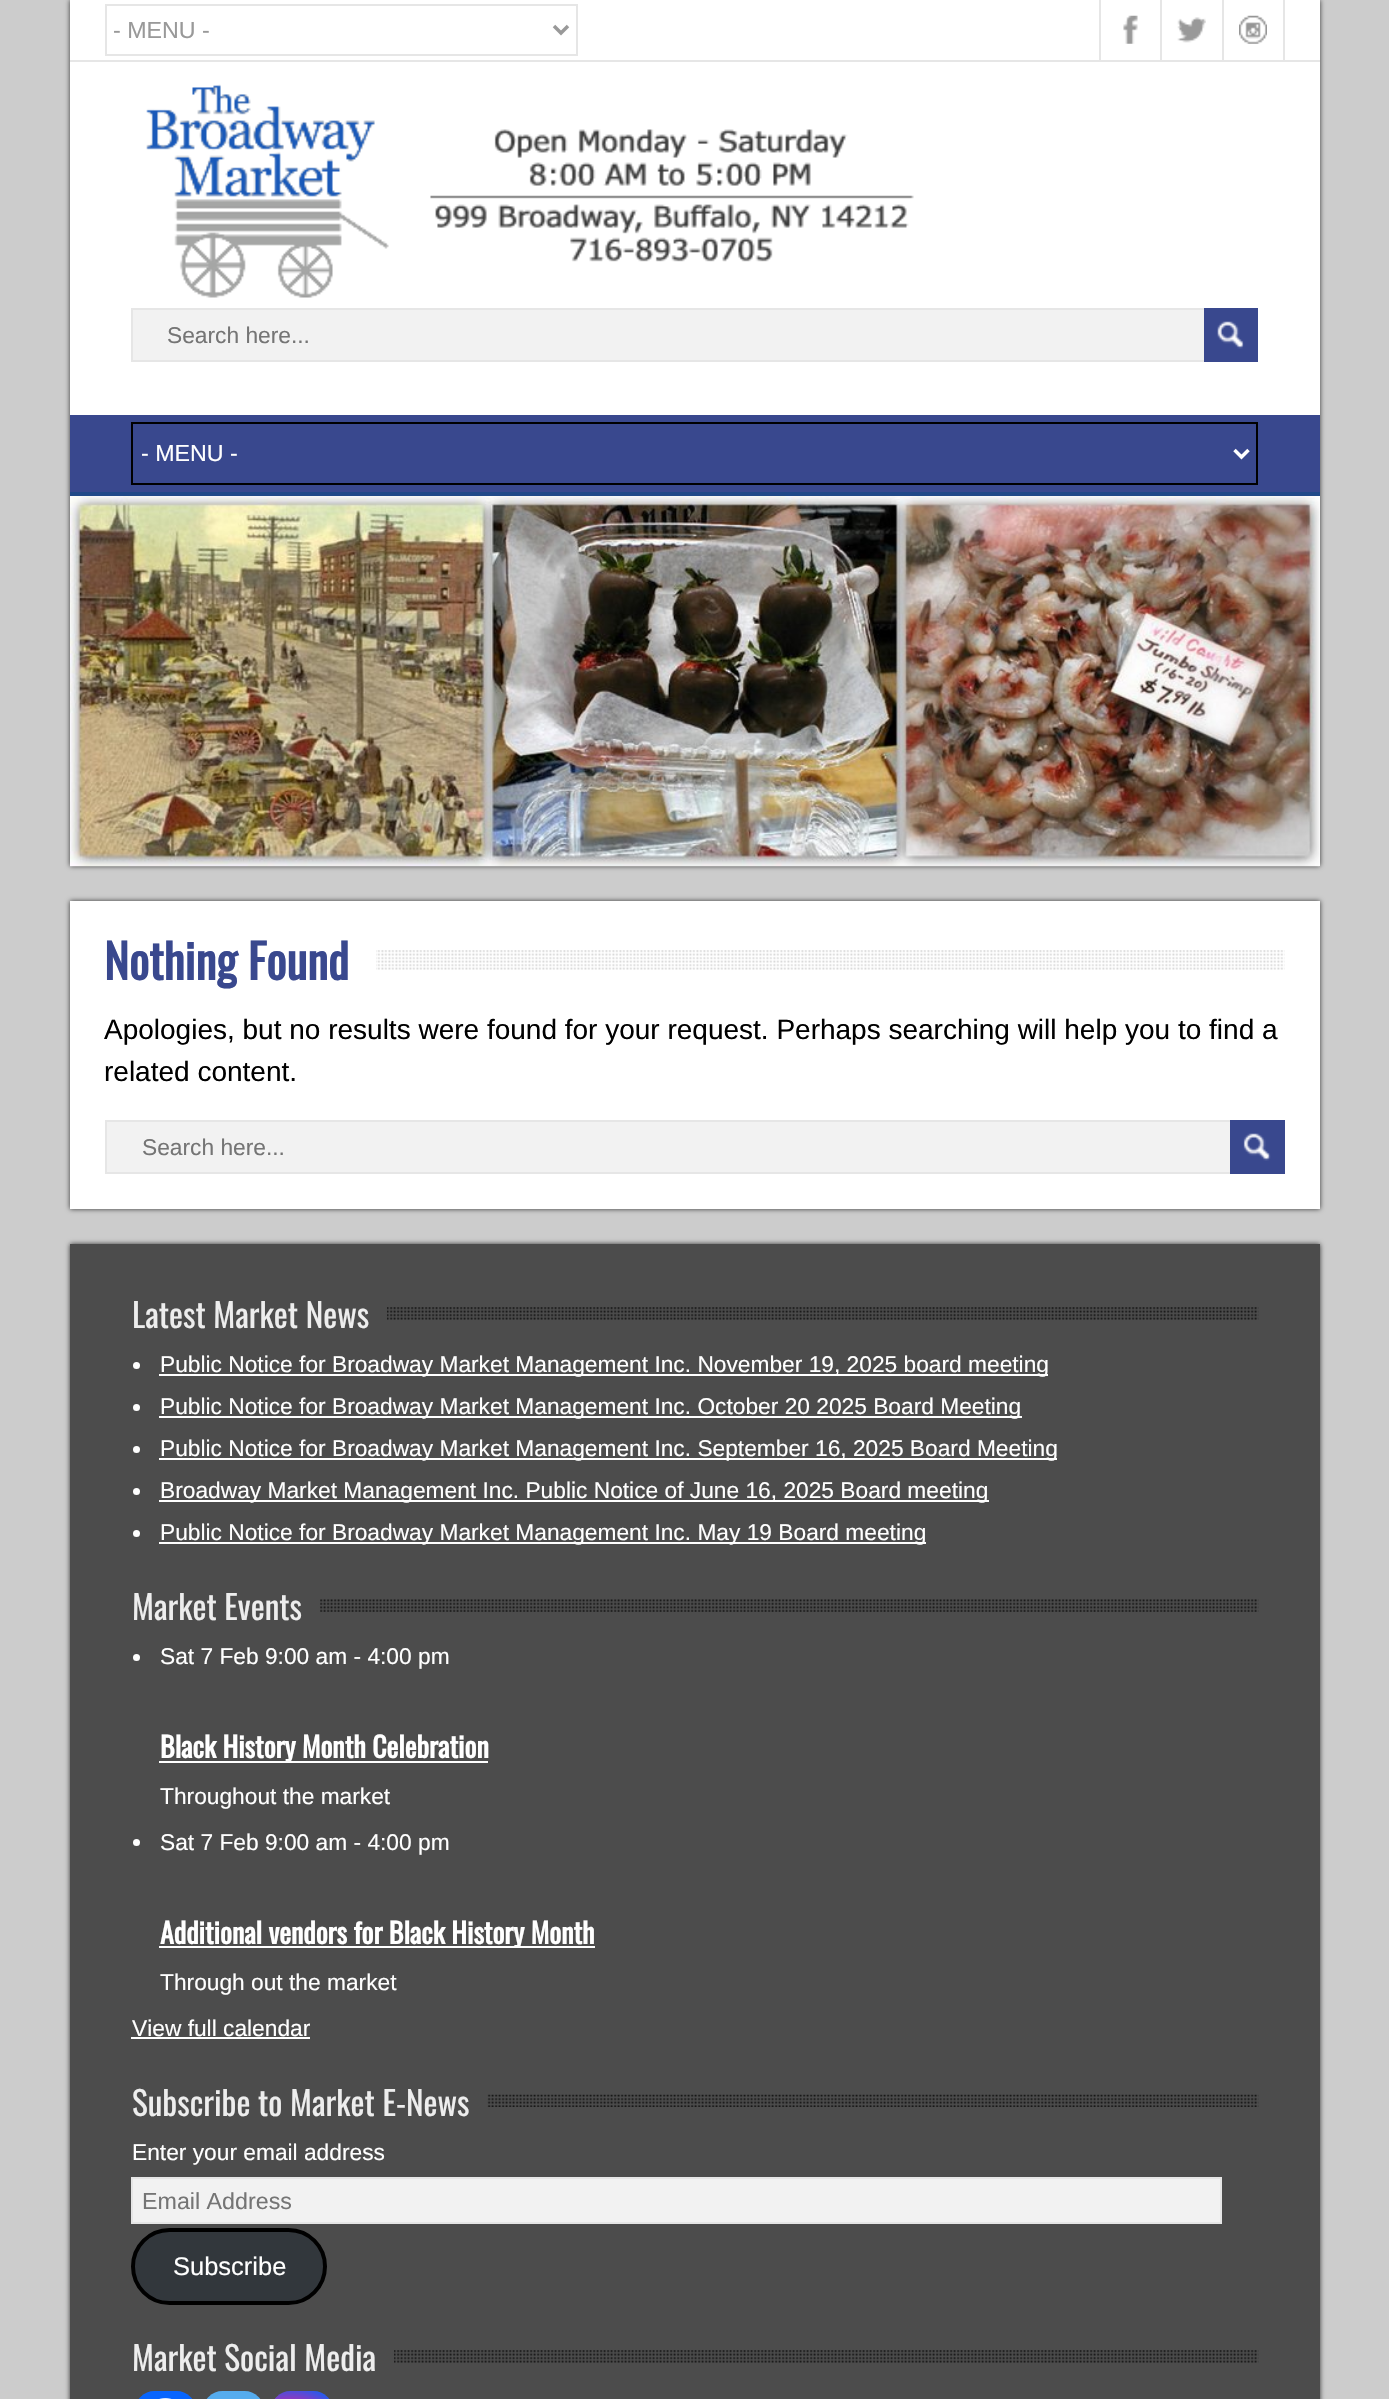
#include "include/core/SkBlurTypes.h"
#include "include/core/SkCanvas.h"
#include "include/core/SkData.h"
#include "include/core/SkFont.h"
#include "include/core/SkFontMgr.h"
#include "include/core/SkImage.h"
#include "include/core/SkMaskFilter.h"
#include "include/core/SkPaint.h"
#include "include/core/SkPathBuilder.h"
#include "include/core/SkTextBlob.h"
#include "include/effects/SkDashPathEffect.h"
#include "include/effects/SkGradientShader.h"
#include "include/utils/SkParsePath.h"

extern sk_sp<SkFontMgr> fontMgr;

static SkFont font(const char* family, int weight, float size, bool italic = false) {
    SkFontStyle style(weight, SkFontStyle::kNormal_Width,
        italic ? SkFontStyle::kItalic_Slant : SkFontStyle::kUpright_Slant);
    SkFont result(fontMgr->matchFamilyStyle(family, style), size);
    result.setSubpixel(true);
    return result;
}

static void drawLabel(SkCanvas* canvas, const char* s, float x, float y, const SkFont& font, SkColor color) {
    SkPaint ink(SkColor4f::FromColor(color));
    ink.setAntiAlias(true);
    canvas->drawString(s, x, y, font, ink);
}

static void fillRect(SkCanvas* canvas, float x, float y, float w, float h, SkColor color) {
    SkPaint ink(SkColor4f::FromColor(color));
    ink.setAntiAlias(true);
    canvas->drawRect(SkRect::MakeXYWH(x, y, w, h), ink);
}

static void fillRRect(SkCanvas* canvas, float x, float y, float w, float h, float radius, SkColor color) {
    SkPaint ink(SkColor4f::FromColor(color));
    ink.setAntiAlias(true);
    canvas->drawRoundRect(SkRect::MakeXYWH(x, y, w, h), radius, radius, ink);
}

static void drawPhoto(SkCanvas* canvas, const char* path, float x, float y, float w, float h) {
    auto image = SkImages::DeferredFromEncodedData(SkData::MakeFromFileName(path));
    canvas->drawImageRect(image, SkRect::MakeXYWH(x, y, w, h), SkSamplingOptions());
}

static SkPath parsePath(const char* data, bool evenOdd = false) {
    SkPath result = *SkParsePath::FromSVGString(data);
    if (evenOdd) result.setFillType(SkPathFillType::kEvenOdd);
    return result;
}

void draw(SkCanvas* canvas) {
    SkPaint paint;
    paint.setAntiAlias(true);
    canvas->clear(0xFFCCCCCC);
    paint.setColor(0xFF333333);
    paint.setMaskFilter(SkMaskFilter::MakeBlur(kNormal_SkBlurStyle, 2.5f));
    canvas->drawRect(SkRect::MakeXYWH(70, 0, 1250, 866), paint);
    paint.setMaskFilter(nullptr);
    fillRect(canvas, 70, 0, 1250, 866, 0xFFFFFFFF);
    fillRect(canvas, 70, 60, 1250, 2, 0xFFE6E6E6);
    paint.setStroke(true);
    paint.setStrokeWidth(2);
    paint.setColor(0xFFE6E6E6);
    canvas->drawRect(SkRect::MakeXYWH(106, 5, 471, 50), paint);
    paint.setStrokeWidth(3.5f);
    paint.setColor(0xFF999999);
    canvas->drawPath(parsePath("M554 26L561 33L568 26"), paint);
    SkFont font1 = font("Liberation Sans", 400, 23.25f);
    drawLabel(canvas, "- MENU -", 113, 38, font1, 0xFF999999);
    fillRect(canvas, 1099, 0, 2, 60, 0xFFE6E6E6);
    drawPhoto(canvas, "assets/img1.png", 1123, 15, 15, 29);
    fillRect(canvas, 1160, 0, 2, 60, 0xFFE6E6E6);
    drawPhoto(canvas, "assets/img2.png", 1177, 17, 29, 26);
    fillRect(canvas, 1222, 0, 2, 60, 0xFFE6E6E6);
    drawPhoto(canvas, "assets/img3.png", 1239, 15, 28, 29);
    fillRect(canvas, 1283, 0, 2, 60, 0xFFE6E6E6);
    drawPhoto(canvas, "assets/img4.png", 146, 84, 768, 214);
    fillRect(canvas, 133, 310, 1071, 50, 0xFFF2F2F2);
    paint.setStrokeWidth(2);
    paint.setColor(0xFFE6E6E6);
    canvas->drawRect(SkRect::MakeXYWH(132, 309, 1117, 52), paint);
    SkFont font2 = font("Liberation Sans", 400, 22.75f);
    drawLabel(canvas, "Search here...", 167, 343, font2, 0xFF757575);
    fillRect(canvas, 1204, 308, 54, 54, 0xFF39488E);
    drawPhoto(canvas, "assets/img5.png", 1217, 321, 27, 28);
    fillRect(canvas, 70, 415, 1250, 77, 0xFF39488E);
    fillRect(canvas, 70, 492, 1250, 4, 0xFF214988);
    paint.setColor(0xFF000000);
    canvas->drawRect(SkRect::MakeXYWH(132, 423, 1125, 61), paint);
    paint.setStrokeWidth(3.5f);
    paint.setColor(0xFFFFFFFF);
    canvas->drawPath(parsePath("M1234.5 450L1241.5 457L1248.5 450"), paint);
    drawLabel(canvas, "- MENU -", 141, 461, font1, 0xFFFFFFFF);
    drawPhoto(canvas, "assets/img6.png", 70, 496, 1250, 371);
    paint.setStroke(false);
    paint.setColor(0xFF333333);
    paint.setMaskFilter(SkMaskFilter::MakeBlur(kNormal_SkBlurStyle, 2.5f));
    canvas->drawRect(SkRect::MakeXYWH(70, 901, 1250, 308), paint);
    paint.setMaskFilter(nullptr);
    fillRect(canvas, 70, 901, 1250, 308, 0xFFFFFFFF);
    drawPhoto(canvas, "assets/img7.png", 376, 950, 909, 20);
    SkFont font3 = font("Oswald", 700, 47.25f);
    drawLabel(canvas, "Nothing Found", 104, 980, font3, 0xFF39488E);
    SkFont font4 = font("Liberation Sans", 400, 28);
    drawLabel(canvas, "Apologies, but no results were found for your request. Perhaps searching will help you to find a", 104, 1039, font4, 0xFF000000);
    drawLabel(canvas, "related content.", 104, 1081, font4, 0xFF000000);
    fillRect(canvas, 107, 1122, 1123, 50, 0xFFF2F2F2);
    paint.setStroke(true);
    paint.setStrokeWidth(2);
    paint.setColor(0xFFE6E6E6);
    canvas->drawRect(SkRect::MakeXYWH(106, 1121, 1171, 52), paint);
    drawLabel(canvas, "Search here...", 142, 1155, font2, 0xFF757575);
    fillRect(canvas, 1230, 1120, 55, 54, 0xFF39488E);
    drawPhoto(canvas, "assets/img8.png", 1243, 1133, 28, 28);
    paint.setStroke(false);
    paint.setColor(0xFF333333);
    paint.setMaskFilter(SkMaskFilter::MakeBlur(kNormal_SkBlurStyle, 2.5f));
    canvas->drawRect(SkRect::MakeXYWH(70, 1244, 1250, 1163), paint);
    paint.setMaskFilter(nullptr);
    fillRect(canvas, 70, 1244, 1250, 1155, 0xFF4C4C4C);
    drawPhoto(canvas, "assets/img9.png", 387, 1307, 872, 13);
    SkFont font5 = font("Oswald", 400, 33.25f);
    drawLabel(canvas, "Latest Market News", 132, 1328, font5, 0xFFEDEDED);
    paint.setColor(0xFFFFFFFF);
    canvas->drawCircle(136.5f, 1365.5f, 3.5f, paint);
    fillRect(canvas, 159, 1374, 889, 2, 0xFFFFFFFF);
    drawLabel(canvas, "Public Notice for Broadway Market Management Inc. November 19, 2025 board meeting", 160, 1372, font2, 0xFFFFFFFF);
    canvas->drawCircle(136.5f, 1407.5f, 3.5f, paint);
    fillRect(canvas, 159, 1416, 863, 2, 0xFFFFFFFF);
    drawLabel(canvas, "Public Notice for Broadway Market Management Inc. October 20 2025 Board Meeting", 160, 1414, font2, 0xFFFFFFFF);
    canvas->drawCircle(136.5f, 1449.5f, 3.5f, paint);
    fillRect(canvas, 159, 1458, 898, 2, 0xFFFFFFFF);
    drawLabel(canvas, "Public Notice for Broadway Market Management Inc. September 16, 2025 Board Meeting", 160, 1456, font2, 0xFFFFFFFF);
    canvas->drawCircle(136.5f, 1491.5f, 3.5f, paint);
    fillRect(canvas, 159, 1500, 830, 2, 0xFFFFFFFF);
    drawLabel(canvas, "Broadway Market Management Inc. Public Notice of June 16, 2025 Board meeting", 160, 1498, font2, 0xFFFFFFFF);
    canvas->drawCircle(136.5f, 1533.5f, 3.5f, paint);
    fillRect(canvas, 159, 1542, 767, 2, 0xFFFFFFFF);
    drawLabel(canvas, "Public Notice for Broadway Market Management Inc. May 19 Board meeting", 160, 1540, font2, 0xFFFFFFFF);
    drawPhoto(canvas, "assets/img10.png", 320, 1599, 939, 13);
    drawLabel(canvas, "Market Events", 132, 1620, font5, 0xFFEDEDED);
    canvas->drawCircle(136.5f, 1657.5f, 3.5f, paint);
    drawLabel(canvas, "Sat 7 Feb 9:00 am - 4:00 pm", 160, 1664, font2, 0xFFFFFFFF);
    fillRect(canvas, 159, 1761, 329, 2, 0xFFFFFFFF);
    SkFont font6 = font("Oswald", 700, 28);
    drawLabel(canvas, "Black History Month Celebration", 160, 1758, font6, 0xFFFFFFFF);
    drawLabel(canvas, "Throughout the market", 160, 1804, font2, 0xFFFFFFFF);
    canvas->drawCircle(136.5f, 1842.5f, 3.5f, paint);
    drawLabel(canvas, "Sat 7 Feb 9:00 am - 4:00 pm", 160, 1850, font2, 0xFFFFFFFF);
    fillRect(canvas, 159, 1946, 436, 2, 0xFFFFFFFF);
    drawLabel(canvas, "Additional vendors for Black History Month", 160, 1944, font6, 0xFFFFFFFF);
    drawLabel(canvas, "Through out the market", 160, 1990, font2, 0xFFFFFFFF);
    drawLabel(canvas, "View full calendar", 132, 2036, font2, 0xFFFFFFFF);
    fillRect(canvas, 131, 2037, 179, 2, 0xFFFFFFFF);
    drawPhoto(canvas, "assets/img11.png", 487, 2094, 772, 13);
    drawLabel(canvas, "Subscribe to Market E-News", 132, 2116, font5, 0xFFEDEDED);
    drawLabel(canvas, "Enter your email address", 132, 2160, font2, 0xFFFFFFFF);
    paint.setColor(0xFFF2F2F2);
    canvas->drawRect(SkRect::MakeXYWH(132, 2178, 1089, 45), paint);
    paint.setStroke(true);
    paint.setColor(0xFFE6E6E6);
    canvas->drawRect(SkRect::MakeXYWH(132, 2178, 1089, 45), paint);
    drawLabel(canvas, "Email Address", 142, 2209, font1, 0xFF757575);
    paint.setStroke(false);
    paint.setColor(0xFF32373C);
    canvas->drawRoundRect(SkRect::MakeXYWH(133, 2230, 192, 73), 36.5f, 36.5f, paint);
    paint.setStroke(true);
    paint.setStrokeWidth(4);
    paint.setColor(0xFF000000);
    canvas->drawRoundRect(SkRect::MakeXYWH(133, 2230, 192, 73), 36.5f, 36.5f, paint);
    SkFont font7 = font("Liberation Sans", 400, 25.5f);
    drawLabel(canvas, "Subscribe", 173, 2275, font7, 0xFFFFFFFF);
    drawPhoto(canvas, "assets/img12.png", 394, 2350, 865, 13);
    drawLabel(canvas, "Market Social Media", 132, 2371, font5, 0xFFEDEDED);
    fillRRect(canvas, 135, 2391, 61, 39, 30.5f, 0xFF0765FE);
    drawPhoto(canvas, "assets/img13.png", 159, 2398, 13, 1);
    fillRRect(canvas, 203, 2391, 61, 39, 30.5f, 0xFF55ACEE);
    paint.setStroke(false);
    {
        const SkColor colors[] = {0xFFFDF497, 0xFFFDF497, 0xFFFD5949, 0xFFD6249F, 0xFF285AEB};
        const float stops[] = {0, 0.05f, 0.45f, 0.6f, 0.9f};
        paint.setShader(SkGradientShader::MakeRadial({290, 2456}, 78, colors, stops, 5, SkTileMode::kClamp));
        paint.setAlpha(255);
    }
    canvas->drawRoundRect(SkRect::MakeXYWH(271, 2391, 62, 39), 30.5f, 30.5f, paint);
}
